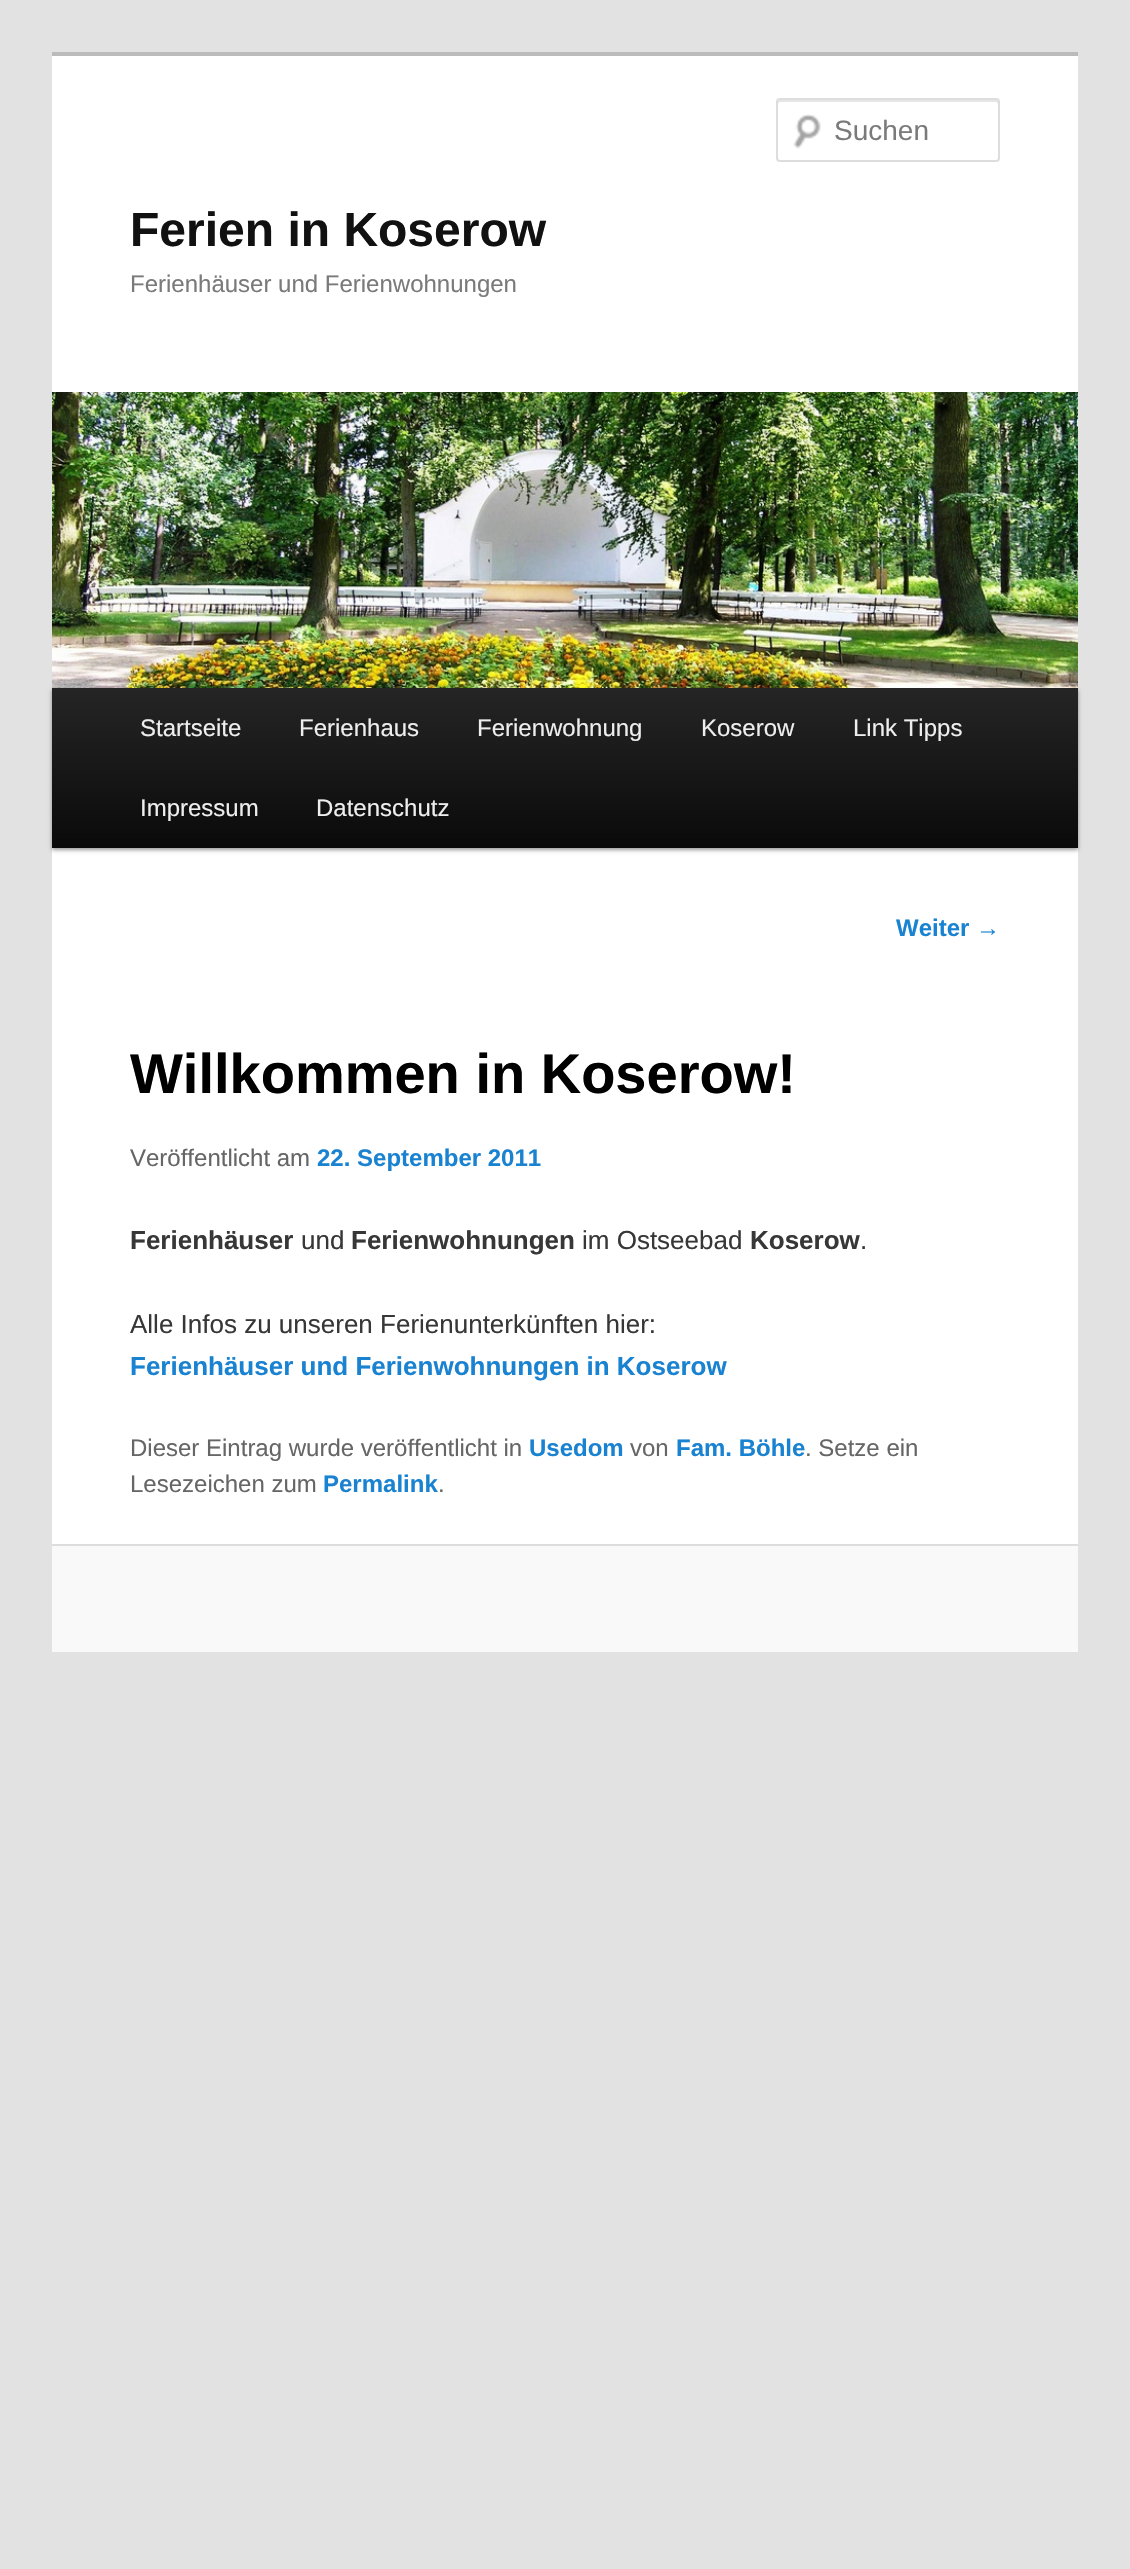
#include "include/core/SkBlurTypes.h"
#include "include/core/SkCanvas.h"
#include "include/core/SkData.h"
#include "include/core/SkFont.h"
#include "include/core/SkFontMgr.h"
#include "include/core/SkImage.h"
#include "include/core/SkMaskFilter.h"
#include "include/core/SkPaint.h"
#include "include/core/SkPathBuilder.h"
#include "include/core/SkTextBlob.h"
#include "include/effects/SkDashPathEffect.h"
#include "include/effects/SkGradientShader.h"
#include "include/utils/SkParsePath.h"

extern sk_sp<SkFontMgr> fontMgr;

static SkFont font(const char* family, int weight, float size, bool italic = false) {
    SkFontStyle style(weight, SkFontStyle::kNormal_Width,
        italic ? SkFontStyle::kItalic_Slant : SkFontStyle::kUpright_Slant);
    SkFont result(fontMgr->matchFamilyStyle(family, style), size);
    result.setSubpixel(true);
    return result;
}

static void drawLabel(SkCanvas* canvas, const char* s, float x, float y, const SkFont& font, SkColor color) {
    SkPaint ink(SkColor4f::FromColor(color));
    ink.setAntiAlias(true);
    canvas->drawString(s, x, y, font, ink);
}

static void fillRect(SkCanvas* canvas, float x, float y, float w, float h, SkColor color) {
    SkPaint ink(SkColor4f::FromColor(color));
    ink.setAntiAlias(true);
    canvas->drawRect(SkRect::MakeXYWH(x, y, w, h), ink);
}

static void drawPhoto(SkCanvas* canvas, const char* path, float x, float y, float w, float h) {
    auto image = SkImages::DeferredFromEncodedData(SkData::MakeFromFileName(path));
    canvas->drawImageRect(image, SkRect::MakeXYWH(x, y, w, h), SkSamplingOptions());
}

static SkPath parsePath(const char* data, bool evenOdd = false) {
    SkPath result = *SkParsePath::FromSVGString(data);
    if (evenOdd) result.setFillType(SkPathFillType::kEvenOdd);
    return result;
}

void draw(SkCanvas* canvas) {
    SkPaint paint;
    paint.setAntiAlias(true);
    canvas->clear(0xFFE2E2E2);
    fillRect(canvas, 52, 56, 1026, 1488, 0xFFFFFFFF);
    fillRect(canvas, 52, 52, 1026, 4, 0xFFBBBBBB);
    drawPhoto(canvas, "assets/img1.png", 793, 114, 28, 35);
    paint.setColor(0xFFE6E6E6);
    canvas->drawPath(parsePath("M780 102H996C997 102 998 103 998 104V102C998 101 997 100 996 100H780C779 100 778 101 778 102V104C778 103 779 102 780 102Z"), paint);
    paint.setStroke(true);
    paint.setStrokeWidth(2);
    paint.setColor(0xFFDDDDDD);
    canvas->drawRoundRect(SkRect::MakeXYWH(777, 99, 222, 62), 3, 3, paint);
    SkFont font1 = font("Liberation Sans", 400, 28);
    drawLabel(canvas, "Suchen", 834, 140, font1, 0xFF7A7A7A);
    SkFont font2 = font("Liberation Sans", 700, 48);
    drawLabel(canvas, "Ferien in Koserow", 130, 246, font2, 0xFF111111);
    SkFont font3 = font("Liberation Sans", 400, 24);
    drawLabel(canvas, "Ferienhäuser und Ferienwohnungen", 130, 292, font3, 0xFF7A7A7A);
    paint.setStroke(false);
    paint.setColor(0x66000000);
    paint.setMaskFilter(SkMaskFilter::MakeBlur(kNormal_SkBlurStyle, 2));
    canvas->drawRect(SkRect::MakeXYWH(52, 690, 1026, 160), paint);
    paint.setMaskFilter(nullptr);
    drawPhoto(canvas, "assets/img2.png", 52, 392, 1026, 296);
    {
        const SkColor colors[] = {0xFF252525, 0xFF0A0A0A};
        const float stops[] = {0, 1};
        const SkPoint ends[] = {{565, 688}, {565, 848}};
        paint.setShader(SkGradientShader::MakeLinear(ends, colors, stops, 2, SkTileMode::kClamp));
        paint.setAlpha(255);
    }
    canvas->drawRect(SkRect::MakeXYWH(52, 688, 1026, 160), paint);
    drawLabel(canvas, "Startseite", 140, 736, font3, 0xFFEEEEEE);
    drawLabel(canvas, "Ferienhaus", 299, 736, font3, 0xFFEEEEEE);
    drawLabel(canvas, "Ferienwohnung", 477, 736, font3, 0xFFEEEEEE);
    drawLabel(canvas, "Koserow", 701, 736, font3, 0xFFEEEEEE);
    drawLabel(canvas, "Link Tipps", 853, 736, font3, 0xFFEEEEEE);
    drawLabel(canvas, "Impressum", 140, 816, font3, 0xFFEEEEEE);
    drawLabel(canvas, "Datenschutz", 316, 816, font3, 0xFFEEEEEE);
    SkFont font4 = font("Liberation Sans", 700, 24);
    drawLabel(canvas, "Weiter", 896, 936, font4, 0xFF1982D1);
    drawLabel(canvas, "→", 976, 936, font3, 0xFF1982D1);
    SkFont font5 = font("Liberation Sans", 700, 56);
    drawLabel(canvas, "Willkommen in Koserow!", 130, 1093, font5, 0xFF000000);
    drawLabel(canvas, "Veröffentlicht am", 130, 1166, font3, 0xFF666666);
    drawLabel(canvas, "22. September 2011", 317, 1166, font4, 0xFF1982D1);
    SkFont font6 = font("Liberation Sans", 700, 26);
    drawLabel(canvas, "Ferienhäuser", 130, 1249, font6, 0xFF373737);
    SkFont font7 = font("Liberation Sans", 400, 26);
    drawLabel(canvas, "und", 301, 1249, font7, 0xFF373737);
    drawLabel(canvas, "Ferienwohnungen", 351, 1249, font6, 0xFF373737);
    drawLabel(canvas, "im Ostseebad", 582, 1249, font7, 0xFF373737);
    drawLabel(canvas, "Koserow", 750, 1249, font6, 0xFF373737);
    drawLabel(canvas, ".", 860, 1249, font7, 0xFF373737);
    drawLabel(canvas, "Alle Infos zu unseren Ferienunterkünften hier:", 130, 1333, font7, 0xFF373737);
    drawLabel(canvas, "Ferienhäuser und Ferienwohnungen in Koserow", 130, 1375, font6, 0xFF1982D1);
    drawLabel(canvas, "Dieser Eintrag wurde veröffentlicht in", 130, 1456, font3, 0xFF666666);
    drawLabel(canvas, "Usedom", 529, 1456, font4, 0xFF1982D1);
    drawLabel(canvas, "von", 630, 1456, font3, 0xFF666666);
    drawLabel(canvas, "Fam. Böhle", 676, 1456, font4, 0xFF1982D1);
    drawLabel(canvas, ". Setze ein", 805, 1456, font3, 0xFF666666);
    drawLabel(canvas, "Lesezeichen zum", 130, 1492, font3, 0xFF666666);
    drawLabel(canvas, "Permalink", 323, 1492, font4, 0xFF1982D1);
    drawLabel(canvas, ".", 438, 1492, font3, 0xFF666666);
    fillRect(canvas, 52, 1546, 1026, 106, 0xFFF9F9F9);
    fillRect(canvas, 52, 1544, 1026, 2, 0xFFDDDDDD);
}
